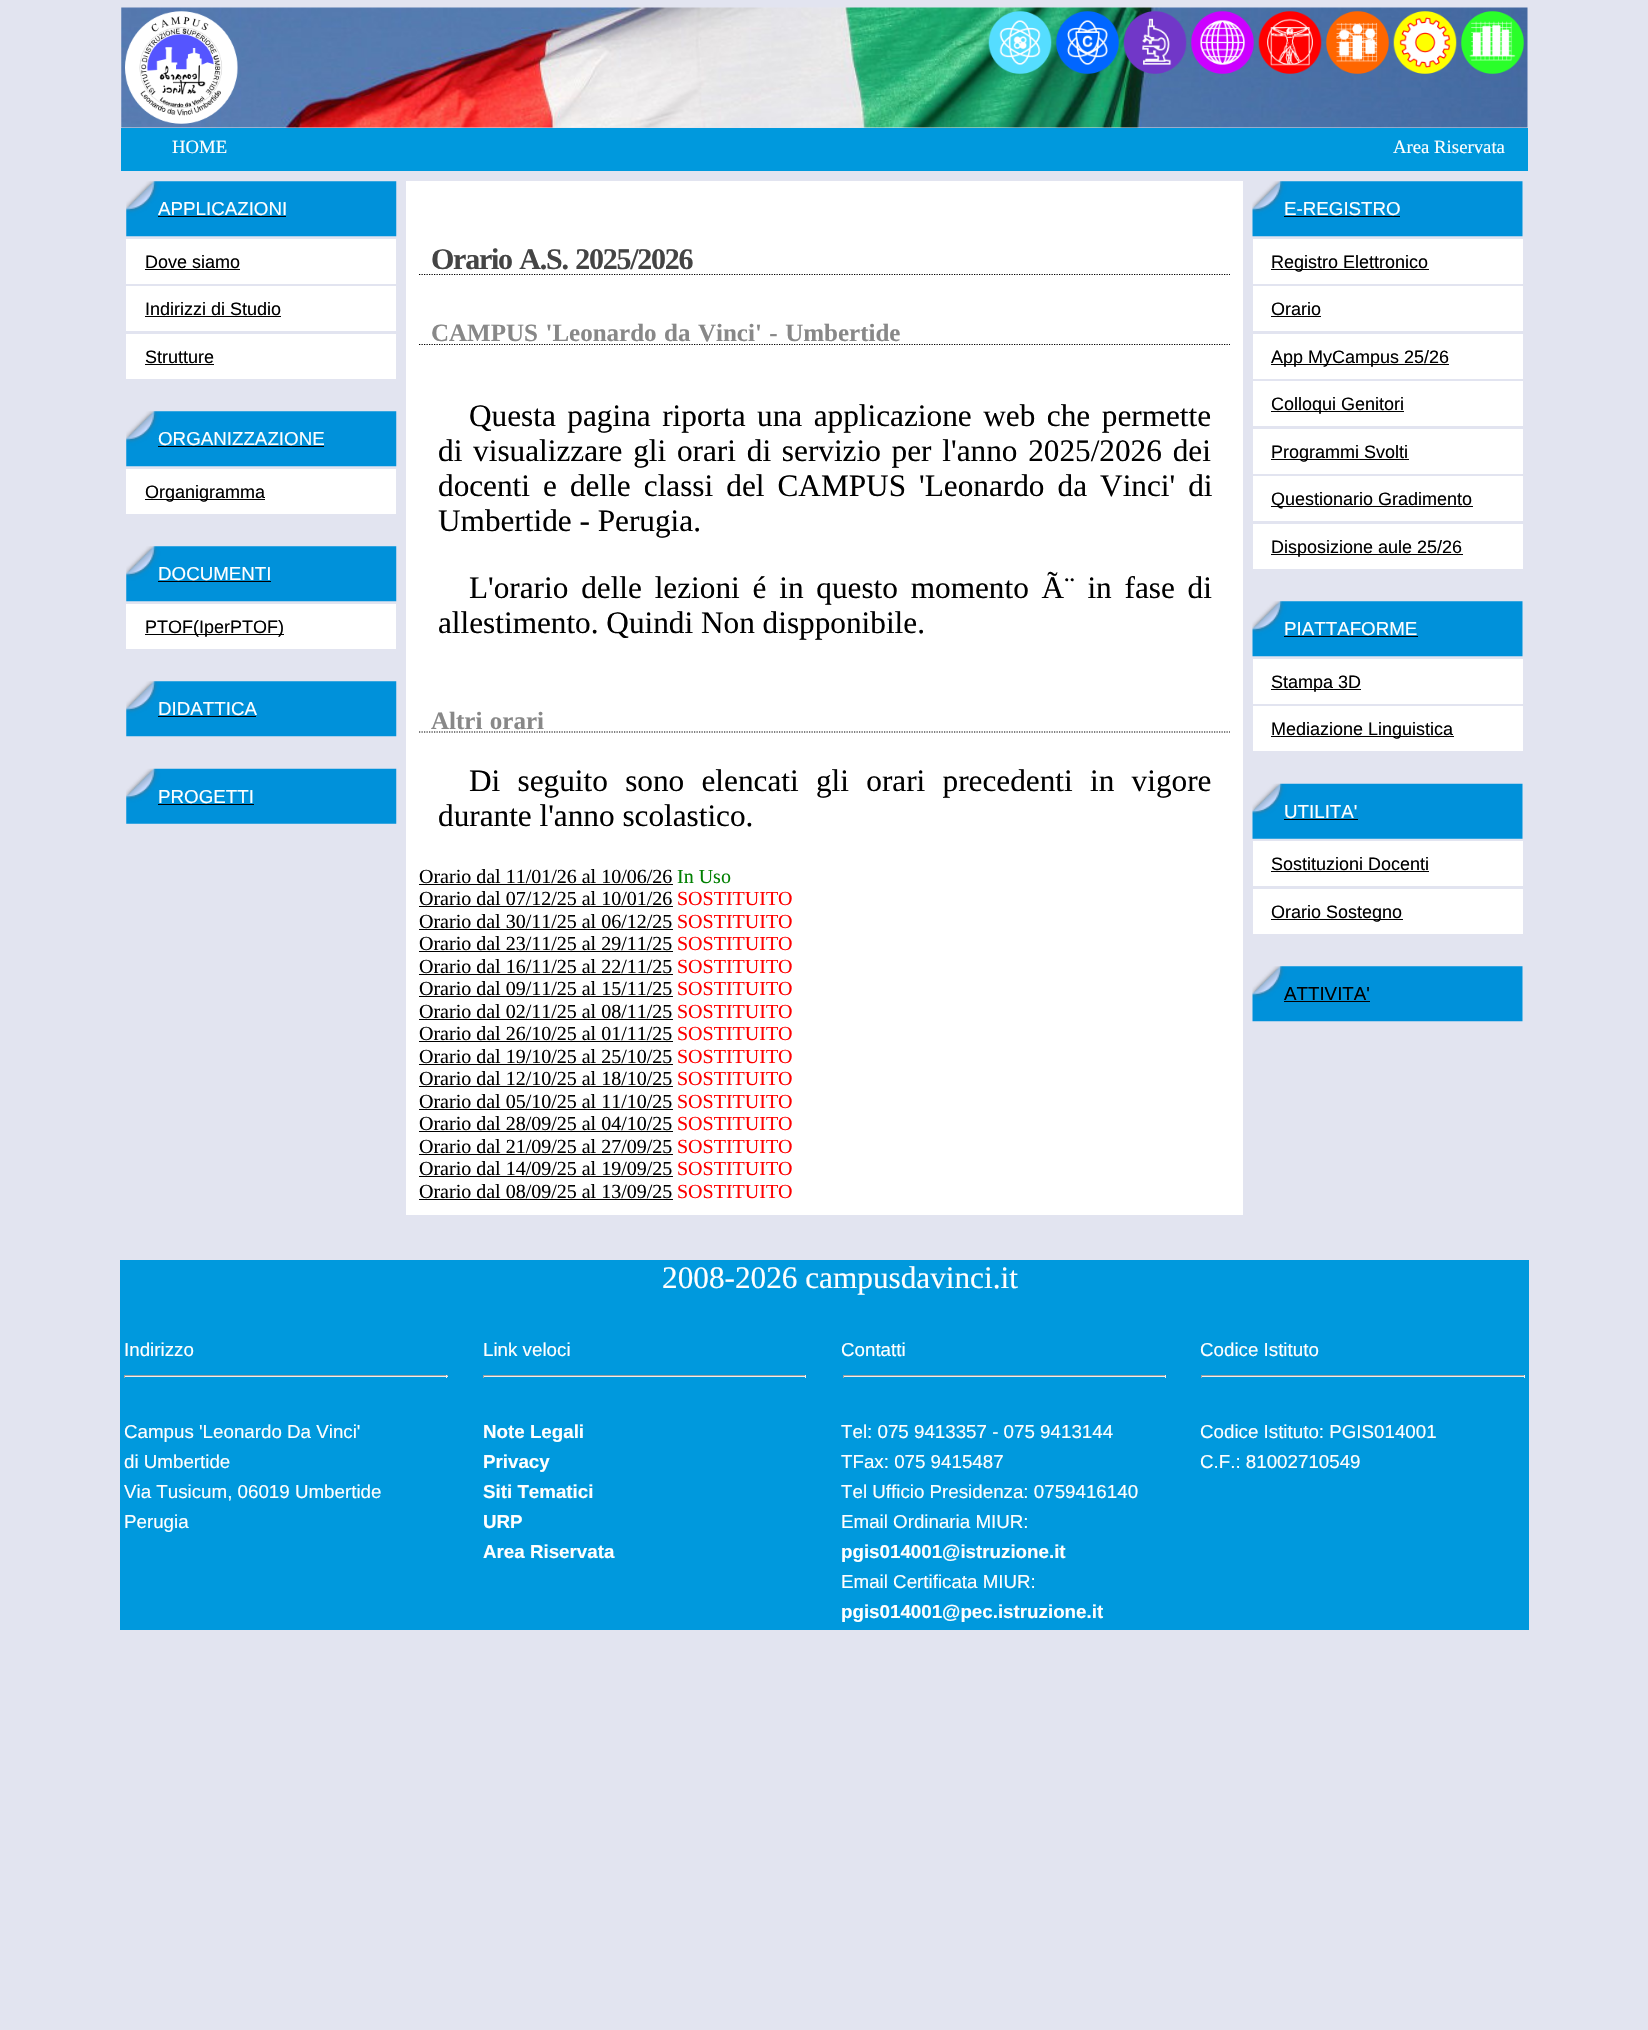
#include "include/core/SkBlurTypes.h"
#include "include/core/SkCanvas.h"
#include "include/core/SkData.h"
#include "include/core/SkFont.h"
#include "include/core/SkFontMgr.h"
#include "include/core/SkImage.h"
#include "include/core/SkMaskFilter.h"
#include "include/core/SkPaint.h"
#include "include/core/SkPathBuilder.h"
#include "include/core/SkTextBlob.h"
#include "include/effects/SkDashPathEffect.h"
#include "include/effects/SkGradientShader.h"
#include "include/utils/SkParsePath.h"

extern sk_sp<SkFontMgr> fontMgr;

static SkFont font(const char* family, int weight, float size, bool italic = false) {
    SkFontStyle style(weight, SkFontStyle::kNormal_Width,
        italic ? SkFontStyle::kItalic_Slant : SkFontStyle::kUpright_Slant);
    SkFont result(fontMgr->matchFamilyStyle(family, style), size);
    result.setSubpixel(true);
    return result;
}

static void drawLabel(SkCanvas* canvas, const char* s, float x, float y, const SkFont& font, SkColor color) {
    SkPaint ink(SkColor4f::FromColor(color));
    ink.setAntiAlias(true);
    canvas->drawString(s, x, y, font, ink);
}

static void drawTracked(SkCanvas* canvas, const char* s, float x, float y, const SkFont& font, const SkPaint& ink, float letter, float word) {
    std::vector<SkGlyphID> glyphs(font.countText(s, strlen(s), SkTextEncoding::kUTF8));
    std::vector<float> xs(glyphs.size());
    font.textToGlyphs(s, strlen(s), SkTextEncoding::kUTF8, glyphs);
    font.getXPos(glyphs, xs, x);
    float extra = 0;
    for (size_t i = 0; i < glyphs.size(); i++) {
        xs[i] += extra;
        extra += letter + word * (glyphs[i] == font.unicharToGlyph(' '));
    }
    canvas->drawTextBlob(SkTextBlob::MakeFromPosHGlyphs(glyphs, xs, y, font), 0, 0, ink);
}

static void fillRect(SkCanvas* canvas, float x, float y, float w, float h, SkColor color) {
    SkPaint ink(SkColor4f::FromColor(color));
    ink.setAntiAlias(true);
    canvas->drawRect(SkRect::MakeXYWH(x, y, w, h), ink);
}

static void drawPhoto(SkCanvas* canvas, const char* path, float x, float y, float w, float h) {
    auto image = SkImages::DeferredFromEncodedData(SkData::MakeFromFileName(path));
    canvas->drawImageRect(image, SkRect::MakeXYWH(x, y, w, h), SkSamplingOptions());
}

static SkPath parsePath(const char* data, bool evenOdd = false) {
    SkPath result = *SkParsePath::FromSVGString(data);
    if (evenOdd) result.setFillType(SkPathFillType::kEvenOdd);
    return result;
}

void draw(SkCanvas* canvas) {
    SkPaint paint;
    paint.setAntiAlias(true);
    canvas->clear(0xFFE2E4F0);
    drawPhoto(canvas, "assets/img1.png", 121, 7, 1407, 121);
    drawPhoto(canvas, "assets/img2.png", 125, 11, 113, 113);
    drawPhoto(canvas, "assets/img3.png", 988, 11, 64, 63);
    drawPhoto(canvas, "assets/img4.png", 1056, 11, 63, 63);
    drawPhoto(canvas, "assets/img5.png", 1123, 11, 64, 63);
    drawPhoto(canvas, "assets/img6.png", 1191, 11, 63, 63);
    drawPhoto(canvas, "assets/img7.png", 1258, 11, 64, 63);
    drawPhoto(canvas, "assets/img8.png", 1326, 11, 63, 63);
    drawPhoto(canvas, "assets/img9.png", 1393, 11, 64, 63);
    drawPhoto(canvas, "assets/img10.png", 1461, 11, 63, 63);
    fillRect(canvas, 121, 128, 1407, 43, 0xFF0099DD);
    SkFont font1 = font("Liberation Serif", 400, 18.75f);
    drawLabel(canvas, "HOME", 172, 153, font1, 0xFFFFFFFF);
    drawLabel(canvas, "Area Riservata", 1393, 153, font1, 0xFFFFFFFF);
    drawPhoto(canvas, "assets/img11.png", 126, 181, 271, 56);
    SkFont font2 = font("Liberation Sans", 400, 18.75f);
    drawLabel(canvas, "APPLICAZIONI", 158, 215, font2, 0xFFFFFFFF);
    fillRect(canvas, 158, 216, 128, 1, 0xFF000000);
    fillRect(canvas, 126, 239, 270, 45, 0xFFFFFFFF);
    SkFont font3 = font("Liberation Sans", 400, 18);
    drawLabel(canvas, "Dove siamo", 145, 268, font3, 0xFF000000);
    fillRect(canvas, 145, 269, 95, 1, 0xFF000000);
    fillRect(canvas, 126, 286, 270, 45, 0xFFFFFFFF);
    drawLabel(canvas, "Indirizzi di Studio", 145, 315, font3, 0xFF000000);
    fillRect(canvas, 145, 316, 136, 1, 0xFF000000);
    fillRect(canvas, 126, 334, 270, 45, 0xFFFFFFFF);
    drawLabel(canvas, "Strutture", 145, 363, font3, 0xFF000000);
    fillRect(canvas, 145, 364, 69, 1, 0xFF000000);
    drawPhoto(canvas, "assets/img11.png", 126, 411, 271, 56);
    drawLabel(canvas, "ORGANIZZAZIONE", 158, 445, font2, 0xFFFFFFFF);
    fillRect(canvas, 158, 446, 166, 1, 0xFF000000);
    fillRect(canvas, 126, 469, 270, 45, 0xFFFFFFFF);
    fillRect(canvas, 145, 499, 120, 1, 0xFF000000);
    drawLabel(canvas, "Organigramma", 145, 498, font3, 0xFF000000);
    drawPhoto(canvas, "assets/img11.png", 126, 546, 271, 56);
    drawLabel(canvas, "DOCUMENTI", 158, 580, font2, 0xFFFFFFFF);
    fillRect(canvas, 158, 581, 113, 1, 0xFF000000);
    fillRect(canvas, 126, 604, 270, 45, 0xFFFFFFFF);
    fillRect(canvas, 145, 634, 139, 1, 0xFF000000);
    drawLabel(canvas, "PTOF(IperPTOF)", 145, 633, font3, 0xFF000000);
    drawPhoto(canvas, "assets/img11.png", 126, 681, 271, 56);
    drawLabel(canvas, "DIDATTICA", 158, 715, font2, 0xFFFFFFFF);
    fillRect(canvas, 158, 716, 98, 1, 0xFF000000);
    drawPhoto(canvas, "assets/img12.png", 126, 768, 271, 56);
    drawLabel(canvas, "PROGETTI", 158, 803, font2, 0xFFFFFFFF);
    fillRect(canvas, 158, 804, 96, 1, 0xFF000000);
    fillRect(canvas, 406, 181, 837, 1034, 0xFFFFFFFF);
    paint.setStroke(true);
    paint.setStrokeWidth(1.2f);
    paint.setColor(0xFF000000);
    paint.setPathEffect(SkDashPathEffect::Make({{1.25f, 1.25f}}, 0));
    canvas->drawPath(parsePath("M419 274.5H1230"), paint);
    paint.setPathEffect(nullptr);
    SkFont font4 = font("Liberation Serif", 700, 30);
    paint.setStroke(false);
    paint.setColor(0xFF444444);
    drawTracked(canvas, "Orario A.S. 2025/2026", 431, 269, font4, paint, -1.25f, 1.25f);
    paint.setStroke(true);
    paint.setColor(0xFF000000);
    paint.setPathEffect(SkDashPathEffect::Make({{1.25f, 1.25f}}, 0));
    canvas->drawPath(parsePath("M419 344.5H1230"), paint);
    paint.setPathEffect(nullptr);
    SkFont font5 = font("Liberation Serif", 700, 25);
    paint.setStroke(false);
    paint.setColor(0xFF888888);
    drawTracked(canvas, "CAMPUS 'Leonardo da Vinci' - Umbertide", 431, 341, font5, paint, 0, 1.25f);
    SkFont font6 = font("Liberation Serif", 400, 31.25f);
    paint.setColor(0xFF000000);
    drawTracked(canvas, "Questa pagina riporta una applicazione web che permette", 469, 426, font6, paint, 0, 3.75f);
    drawTracked(canvas, "di visualizzare gli orari di servizio per l'anno 2025/2026 dei", 438, 461, font6, paint, 0, 3);
    drawTracked(canvas, "docenti e delle classi del CAMPUS 'Leonardo da Vinci' di", 438, 496, font6, paint, 0, 5.25f);
    drawLabel(canvas, "Umbertide - Perugia.", 438, 531, font6, 0xFF000000);
    drawTracked(canvas, "L'orario delle lezioni é in questo momento Ã¨ in fase di", 469, 598, font6, paint, 0, 5);
    drawLabel(canvas, "allestimento. Quindi Non dispponibile.", 438, 633, font6, 0xFF000000);
    paint.setStroke(true);
    paint.setPathEffect(SkDashPathEffect::Make({{1.25f, 1.25f}}, 0));
    canvas->drawPath(parsePath("M419 732H1230"), paint);
    paint.setPathEffect(nullptr);
    paint.setStroke(false);
    paint.setColor(0xFF888888);
    drawTracked(canvas, "Altri orari", 431, 729, font5, paint, 0, 1.25f);
    paint.setColor(0xFF000000);
    drawTracked(canvas, "Di seguito sono elencati gli orari precedenti in vigore", 469, 791, font6, paint, 0, 9.5f);
    drawLabel(canvas, "durante l'anno scolastico.", 438, 826, font6, 0xFF000000);
    SkFont font7 = font("Liberation Serif", 400, 20);
    drawLabel(canvas, "Orario dal 11/01/26 al 10/06/26", 419, 883, font7, 0xFF000000);
    fillRect(canvas, 419, 884, 254, 1, 0xFF000000);
    drawLabel(canvas, "In Uso", 677, 883, font7, 0xFF008000);
    drawLabel(canvas, "Orario dal 07/12/25 al 10/01/26", 419, 905, font7, 0xFF000000);
    fillRect(canvas, 419, 906, 254, 1, 0xFF000000);
    drawLabel(canvas, "SOSTITUITO", 677, 905, font7, 0xFFFF0000);
    drawLabel(canvas, "Orario dal 30/11/25 al 06/12/25", 419, 928, font7, 0xFF000000);
    fillRect(canvas, 419, 929, 254, 1, 0xFF000000);
    drawLabel(canvas, "SOSTITUITO", 677, 928, font7, 0xFFFF0000);
    drawLabel(canvas, "Orario dal 23/11/25 al 29/11/25", 419, 950, font7, 0xFF000000);
    fillRect(canvas, 419, 951, 254, 1, 0xFF000000);
    drawLabel(canvas, "SOSTITUITO", 677, 950, font7, 0xFFFF0000);
    drawLabel(canvas, "Orario dal 16/11/25 al 22/11/25", 419, 973, font7, 0xFF000000);
    fillRect(canvas, 419, 974, 254, 1, 0xFF000000);
    drawLabel(canvas, "SOSTITUITO", 677, 973, font7, 0xFFFF0000);
    drawLabel(canvas, "Orario dal 09/11/25 al 15/11/25", 419, 995, font7, 0xFF000000);
    fillRect(canvas, 419, 996, 254, 1, 0xFF000000);
    drawLabel(canvas, "SOSTITUITO", 677, 995, font7, 0xFFFF0000);
    drawLabel(canvas, "Orario dal 02/11/25 al 08/11/25", 419, 1018, font7, 0xFF000000);
    fillRect(canvas, 419, 1019, 254, 1, 0xFF000000);
    drawLabel(canvas, "SOSTITUITO", 677, 1018, font7, 0xFFFF0000);
    drawLabel(canvas, "Orario dal 26/10/25 al 01/11/25", 419, 1040, font7, 0xFF000000);
    fillRect(canvas, 419, 1041, 254, 1, 0xFF000000);
    drawLabel(canvas, "SOSTITUITO", 677, 1040, font7, 0xFFFF0000);
    drawLabel(canvas, "Orario dal 19/10/25 al 25/10/25", 419, 1063, font7, 0xFF000000);
    fillRect(canvas, 419, 1064, 254, 1, 0xFF000000);
    drawLabel(canvas, "SOSTITUITO", 677, 1063, font7, 0xFFFF0000);
    drawLabel(canvas, "Orario dal 12/10/25 al 18/10/25", 419, 1085, font7, 0xFF000000);
    fillRect(canvas, 419, 1086, 254, 1, 0xFF000000);
    drawLabel(canvas, "SOSTITUITO", 677, 1085, font7, 0xFFFF0000);
    drawLabel(canvas, "Orario dal 05/10/25 al 11/10/25", 419, 1108, font7, 0xFF000000);
    fillRect(canvas, 419, 1109, 254, 1, 0xFF000000);
    drawLabel(canvas, "SOSTITUITO", 677, 1108, font7, 0xFFFF0000);
    drawLabel(canvas, "Orario dal 28/09/25 al 04/10/25", 419, 1130, font7, 0xFF000000);
    fillRect(canvas, 419, 1131, 254, 1, 0xFF000000);
    drawLabel(canvas, "SOSTITUITO", 677, 1130, font7, 0xFFFF0000);
    drawLabel(canvas, "Orario dal 21/09/25 al 27/09/25", 419, 1153, font7, 0xFF000000);
    fillRect(canvas, 419, 1154, 254, 1, 0xFF000000);
    drawLabel(canvas, "SOSTITUITO", 677, 1153, font7, 0xFFFF0000);
    drawLabel(canvas, "Orario dal 14/09/25 al 19/09/25", 419, 1175, font7, 0xFF000000);
    fillRect(canvas, 419, 1176, 254, 1, 0xFF000000);
    drawLabel(canvas, "SOSTITUITO", 677, 1175, font7, 0xFFFF0000);
    drawLabel(canvas, "Orario dal 08/09/25 al 13/09/25", 419, 1198, font7, 0xFF000000);
    fillRect(canvas, 419, 1199, 254, 1, 0xFF000000);
    drawLabel(canvas, "SOSTITUITO", 677, 1198, font7, 0xFFFF0000);
    drawPhoto(canvas, "assets/img13.png", 1252, 181, 271, 56);
    drawLabel(canvas, "E-REGISTRO", 1284, 215, font2, 0xFFFFFFFF);
    fillRect(canvas, 1284, 216, 116, 1, 0xFF000000);
    fillRect(canvas, 1253, 239, 270, 45, 0xFFFFFFFF);
    fillRect(canvas, 1271, 269, 158, 1, 0xFF000000);
    drawLabel(canvas, "Registro Elettronico", 1271, 268, font3, 0xFF000000);
    fillRect(canvas, 1253, 286, 270, 45, 0xFFFFFFFF);
    drawLabel(canvas, "Orario", 1271, 315, font3, 0xFF000000);
    fillRect(canvas, 1271, 316, 50, 1, 0xFF000000);
    fillRect(canvas, 1253, 334, 270, 45, 0xFFFFFFFF);
    fillRect(canvas, 1271, 364, 178, 1, 0xFF000000);
    drawLabel(canvas, "App MyCampus 25/26", 1271, 363, font3, 0xFF000000);
    fillRect(canvas, 1253, 381, 270, 45, 0xFFFFFFFF);
    fillRect(canvas, 1271, 411, 133, 1, 0xFF000000);
    drawLabel(canvas, "Colloqui Genitori", 1271, 410, font3, 0xFF000000);
    fillRect(canvas, 1253, 429, 270, 45, 0xFFFFFFFF);
    fillRect(canvas, 1271, 459, 138, 1, 0xFF000000);
    drawLabel(canvas, "Programmi Svolti", 1271, 458, font3, 0xFF000000);
    fillRect(canvas, 1253, 476, 270, 45, 0xFFFFFFFF);
    fillRect(canvas, 1271, 506, 202, 1, 0xFF000000);
    drawLabel(canvas, "Questionario Gradimento", 1271, 505, font3, 0xFF000000);
    fillRect(canvas, 1253, 524, 270, 45, 0xFFFFFFFF);
    fillRect(canvas, 1271, 554, 192, 1, 0xFF000000);
    drawLabel(canvas, "Disposizione aule 25/26", 1271, 553, font3, 0xFF000000);
    drawPhoto(canvas, "assets/img13.png", 1252, 601, 271, 56);
    drawLabel(canvas, "PIATTAFORME", 1284, 635, font2, 0xFFFFFFFF);
    fillRect(canvas, 1284, 636, 134, 1, 0xFF000000);
    fillRect(canvas, 1253, 659, 270, 45, 0xFFFFFFFF);
    fillRect(canvas, 1271, 689, 90, 1, 0xFF000000);
    drawLabel(canvas, "Stampa 3D", 1271, 688, font3, 0xFF000000);
    fillRect(canvas, 1253, 706, 270, 45, 0xFFFFFFFF);
    fillRect(canvas, 1271, 736, 183, 1, 0xFF000000);
    drawLabel(canvas, "Mediazione Linguistica", 1271, 735, font3, 0xFF000000);
    drawPhoto(canvas, "assets/img14.png", 1252, 783, 271, 56);
    drawLabel(canvas, "UTILITA'", 1284, 818, font2, 0xFFFFFFFF);
    fillRect(canvas, 1284, 819, 74, 1, 0xFF000000);
    fillRect(canvas, 1253, 841, 270, 45, 0xFFFFFFFF);
    drawLabel(canvas, "Sostituzioni Docenti", 1271, 870, font3, 0xFF000000);
    fillRect(canvas, 1271, 871, 158, 1, 0xFF000000);
    fillRect(canvas, 1253, 889, 270, 45, 0xFFFFFFFF);
    fillRect(canvas, 1271, 919, 132, 1, 0xFF000000);
    drawLabel(canvas, "Orario Sostegno", 1271, 918, font3, 0xFF000000);
    drawPhoto(canvas, "assets/img13.png", 1252, 966, 271, 56);
    drawLabel(canvas, "ATTIVITA'", 1284, 1000, font2, 0xFF000000);
    fillRect(canvas, 1284, 1001, 86, 1, 0xFF000000);
    fillRect(canvas, 120, 1260, 1409, 370, 0xFF0099DD);
    drawLabel(canvas, "2008-2026 campusdavinci.it", 662, 1288, font6, 0xFFFFFFFF);
    drawLabel(canvas, "Indirizzo", 124, 1356, font2, 0xFFFFFFFF);
    fillRect(canvas, 124, 1375, 324, 1, 0xFF9F9F9F);
    fillRect(canvas, 446, 1375, 1, 3, 0xFFEEEEEE);
    fillRect(canvas, 124, 1376, 324, 1, 0xFFEEEEEE);
    fillRect(canvas, 124, 1375, 1, 3, 0xFF9F9F9F);
    drawLabel(canvas, "Campus 'Leonardo Da Vinci'", 124, 1438, font2, 0xFFFFFFFF);
    drawLabel(canvas, "di Umbertide", 124, 1468, font2, 0xFFFFFFFF);
    drawLabel(canvas, "Via Tusicum, 06019 Umbertide", 124, 1498, font2, 0xFFFFFFFF);
    drawLabel(canvas, "Perugia", 124, 1528, font2, 0xFFFFFFFF);
    drawLabel(canvas, "Link veloci", 483, 1356, font2, 0xFFFFFFFF);
    fillRect(canvas, 483, 1375, 323, 1, 0xFF9F9F9F);
    fillRect(canvas, 805, 1375, 1, 3, 0xFFEEEEEE);
    fillRect(canvas, 483, 1376, 323, 1, 0xFFEEEEEE);
    fillRect(canvas, 483, 1375, 1, 3, 0xFF9F9F9F);
    SkFont font8 = font("Liberation Sans", 700, 18.75f);
    drawLabel(canvas, "Note Legali", 483, 1438, font8, 0xFFFFFFFF);
    drawLabel(canvas, "Privacy", 483, 1468, font8, 0xFFFFFFFF);
    drawLabel(canvas, "Siti Tematici", 483, 1498, font8, 0xFFFFFFFF);
    drawLabel(canvas, "URP", 483, 1528, font8, 0xFFFFFFFF);
    drawLabel(canvas, "Area Riservata", 483, 1558, font8, 0xFFFFFFFF);
    drawLabel(canvas, "Contatti", 841, 1356, font2, 0xFFFFFFFF);
    fillRect(canvas, 843, 1375, 323, 1, 0xFF9F9F9F);
    fillRect(canvas, 1165, 1375, 1, 3, 0xFFEEEEEE);
    fillRect(canvas, 843, 1376, 323, 1, 0xFFEEEEEE);
    fillRect(canvas, 843, 1375, 1, 3, 0xFF9F9F9F);
    drawLabel(canvas, "Tel: 075 9413357 - 075 9413144", 841, 1438, font2, 0xFFFFFFFF);
    drawLabel(canvas, "TFax: 075 9415487", 841, 1468, font2, 0xFFFFFFFF);
    drawLabel(canvas, "Tel Ufficio Presidenza: 0759416140", 841, 1498, font2, 0xFFFFFFFF);
    drawLabel(canvas, "Email Ordinaria MIUR:", 841, 1528, font2, 0xFFFFFFFF);
    drawLabel(canvas, "pgis014001@istruzione.it", 841, 1558, font8, 0xFFFFFFFF);
    drawLabel(canvas, "Email Certificata MIUR:", 841, 1588, font2, 0xFFFFFFFF);
    drawLabel(canvas, "pgis014001@pec.istruzione.it", 841, 1618, font8, 0xFFFFFFFF);
    drawLabel(canvas, "Codice Istituto", 1200, 1356, font2, 0xFFFFFFFF);
    fillRect(canvas, 1201, 1375, 324, 1, 0xFF9F9F9F);
    fillRect(canvas, 1524, 1375, 1, 3, 0xFFEEEEEE);
    fillRect(canvas, 1201, 1376, 324, 1, 0xFFEEEEEE);
    fillRect(canvas, 1201, 1375, 1, 3, 0xFF9F9F9F);
    drawLabel(canvas, "Codice Istituto: PGIS014001", 1200, 1438, font2, 0xFFFFFFFF);
    drawLabel(canvas, "C.F.: 81002710549", 1200, 1468, font2, 0xFFFFFFFF);
}
